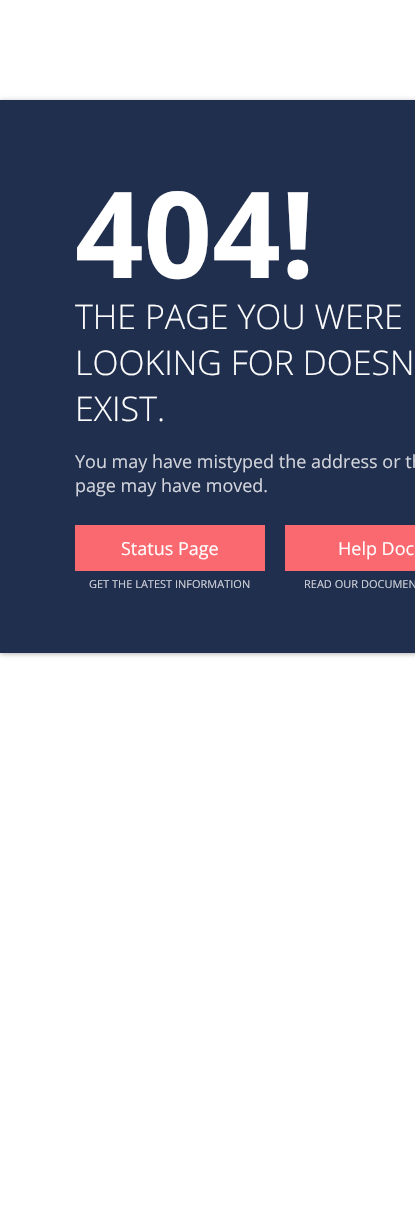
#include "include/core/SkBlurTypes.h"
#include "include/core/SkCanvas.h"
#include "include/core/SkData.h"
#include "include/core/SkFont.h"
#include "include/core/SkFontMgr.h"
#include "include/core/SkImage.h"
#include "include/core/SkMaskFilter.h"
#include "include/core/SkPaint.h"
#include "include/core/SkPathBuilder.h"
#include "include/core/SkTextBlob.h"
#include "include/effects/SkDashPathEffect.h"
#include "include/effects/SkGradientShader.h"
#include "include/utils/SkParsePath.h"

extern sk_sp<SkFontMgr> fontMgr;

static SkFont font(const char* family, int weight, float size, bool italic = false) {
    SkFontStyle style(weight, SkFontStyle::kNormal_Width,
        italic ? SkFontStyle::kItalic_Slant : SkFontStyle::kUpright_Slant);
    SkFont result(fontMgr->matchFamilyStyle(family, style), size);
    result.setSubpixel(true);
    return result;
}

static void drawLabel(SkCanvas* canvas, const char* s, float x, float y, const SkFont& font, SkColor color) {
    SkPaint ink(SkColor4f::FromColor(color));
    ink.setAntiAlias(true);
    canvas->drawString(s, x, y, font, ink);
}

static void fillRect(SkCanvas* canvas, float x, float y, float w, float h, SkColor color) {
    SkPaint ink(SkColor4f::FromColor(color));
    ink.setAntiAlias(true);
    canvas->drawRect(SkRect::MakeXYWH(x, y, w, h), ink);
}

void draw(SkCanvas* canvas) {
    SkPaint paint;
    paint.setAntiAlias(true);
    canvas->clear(0xFFFFFFFF);
    paint.setColor(0x4D000000);
    paint.setMaskFilter(SkMaskFilter::MakeBlur(kNormal_SkBlurStyle, 2.5f));
    canvas->drawRect(SkRect::MakeXYWH(0, 101, 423, 553), paint);
    paint.setMaskFilter(nullptr);
    fillRect(canvas, 0, 100, 415, 553, 0xFF212F4F);
    SkFont font1 = font("Open Sans", 700, 120);
    drawLabel(canvas, "404!", 75, 278, font1, 0xFFFFFFFF);
    SkFont font2 = font("Open Sans", 300, 34);
    drawLabel(canvas, "THE PAGE YOU WERE", 75, 329, font2, 0xFFFFFFFF);
    drawLabel(canvas, "LOOKING FOR DOESN", 75, 375, font2, 0xFFFFFFFF);
    drawLabel(canvas, "EXIST.", 75, 421, font2, 0xFFFFFFFF);
    SkFont font3 = font("Open Sans", 400, 18);
    drawLabel(canvas, "You may have mistyped the address or th", 75, 468, font3, 0xFFD3D5DC);
    drawLabel(canvas, "page may have moved.", 75, 492, font3, 0xFFD3D5DC);
    fillRect(canvas, 75, 525, 190, 46, 0xFFFB6970);
    drawLabel(canvas, "Status Page", 121, 555, font3, 0xFFFFFFFF);
    SkFont font4 = font("Open Sans", 400, 11);
    drawLabel(canvas, "GET THE LATEST INFORMATION", 89, 588, font4, 0xFFD3D5DC);
    fillRect(canvas, 285, 525, 130, 46, 0xFFFB6970);
    drawLabel(canvas, "Help Doc", 338, 555, font3, 0xFFFFFFFF);
    drawLabel(canvas, "READ OUR DOCUMEN", 304, 588, font4, 0xFFD3D5DC);
}
